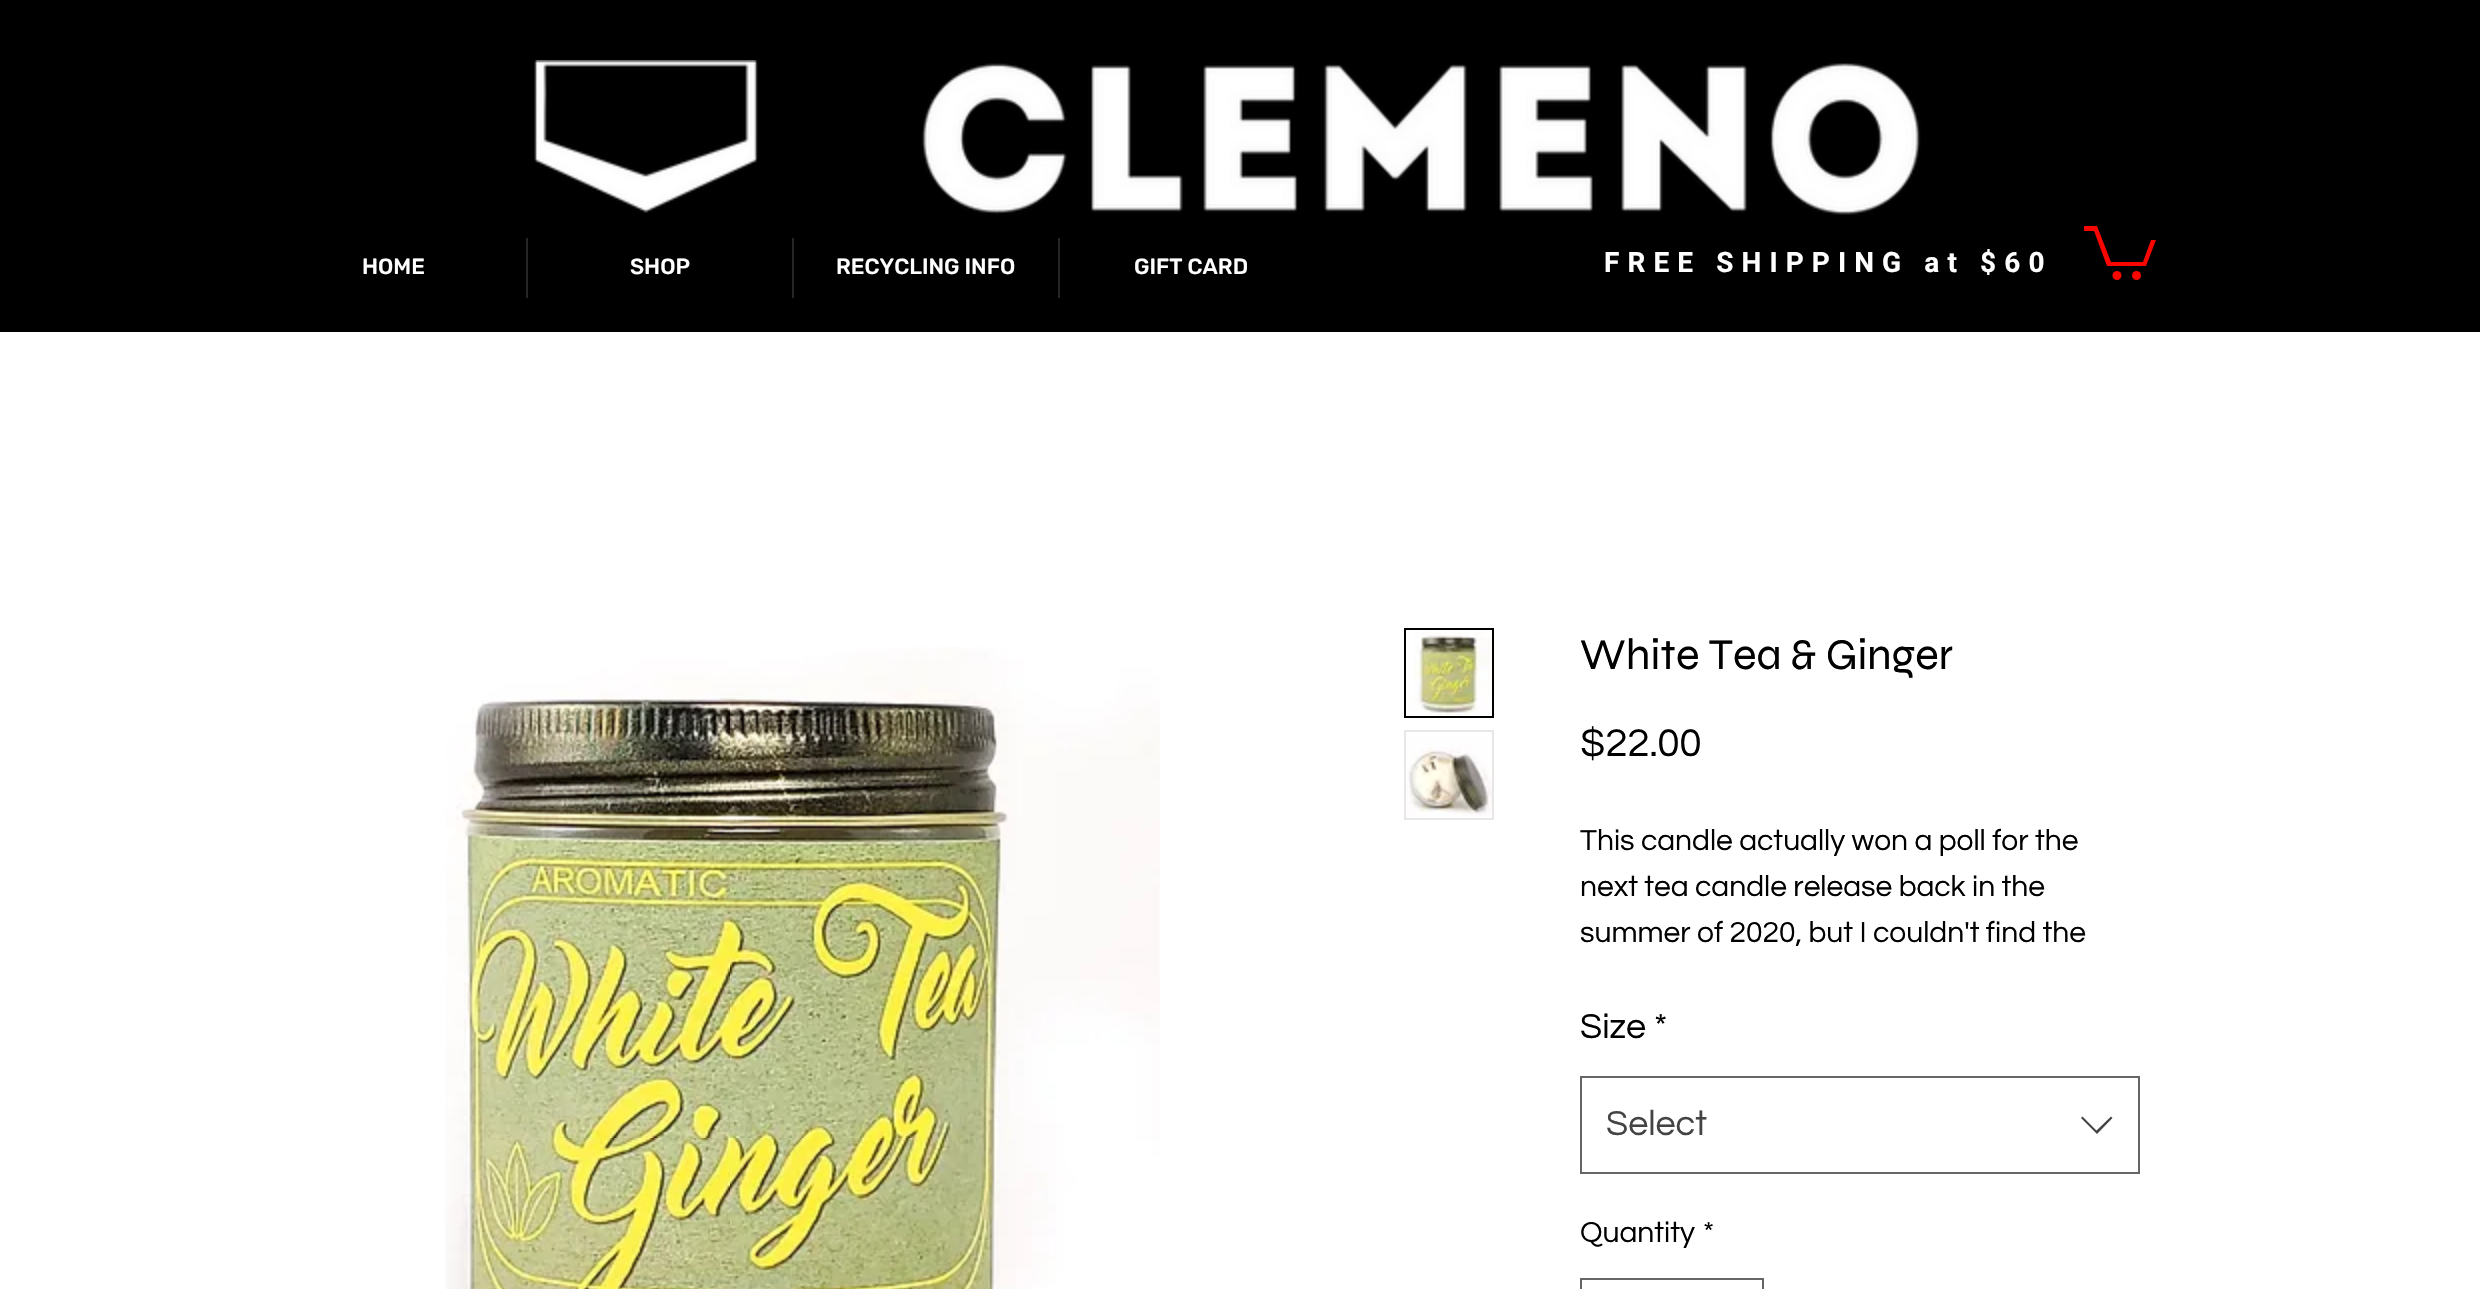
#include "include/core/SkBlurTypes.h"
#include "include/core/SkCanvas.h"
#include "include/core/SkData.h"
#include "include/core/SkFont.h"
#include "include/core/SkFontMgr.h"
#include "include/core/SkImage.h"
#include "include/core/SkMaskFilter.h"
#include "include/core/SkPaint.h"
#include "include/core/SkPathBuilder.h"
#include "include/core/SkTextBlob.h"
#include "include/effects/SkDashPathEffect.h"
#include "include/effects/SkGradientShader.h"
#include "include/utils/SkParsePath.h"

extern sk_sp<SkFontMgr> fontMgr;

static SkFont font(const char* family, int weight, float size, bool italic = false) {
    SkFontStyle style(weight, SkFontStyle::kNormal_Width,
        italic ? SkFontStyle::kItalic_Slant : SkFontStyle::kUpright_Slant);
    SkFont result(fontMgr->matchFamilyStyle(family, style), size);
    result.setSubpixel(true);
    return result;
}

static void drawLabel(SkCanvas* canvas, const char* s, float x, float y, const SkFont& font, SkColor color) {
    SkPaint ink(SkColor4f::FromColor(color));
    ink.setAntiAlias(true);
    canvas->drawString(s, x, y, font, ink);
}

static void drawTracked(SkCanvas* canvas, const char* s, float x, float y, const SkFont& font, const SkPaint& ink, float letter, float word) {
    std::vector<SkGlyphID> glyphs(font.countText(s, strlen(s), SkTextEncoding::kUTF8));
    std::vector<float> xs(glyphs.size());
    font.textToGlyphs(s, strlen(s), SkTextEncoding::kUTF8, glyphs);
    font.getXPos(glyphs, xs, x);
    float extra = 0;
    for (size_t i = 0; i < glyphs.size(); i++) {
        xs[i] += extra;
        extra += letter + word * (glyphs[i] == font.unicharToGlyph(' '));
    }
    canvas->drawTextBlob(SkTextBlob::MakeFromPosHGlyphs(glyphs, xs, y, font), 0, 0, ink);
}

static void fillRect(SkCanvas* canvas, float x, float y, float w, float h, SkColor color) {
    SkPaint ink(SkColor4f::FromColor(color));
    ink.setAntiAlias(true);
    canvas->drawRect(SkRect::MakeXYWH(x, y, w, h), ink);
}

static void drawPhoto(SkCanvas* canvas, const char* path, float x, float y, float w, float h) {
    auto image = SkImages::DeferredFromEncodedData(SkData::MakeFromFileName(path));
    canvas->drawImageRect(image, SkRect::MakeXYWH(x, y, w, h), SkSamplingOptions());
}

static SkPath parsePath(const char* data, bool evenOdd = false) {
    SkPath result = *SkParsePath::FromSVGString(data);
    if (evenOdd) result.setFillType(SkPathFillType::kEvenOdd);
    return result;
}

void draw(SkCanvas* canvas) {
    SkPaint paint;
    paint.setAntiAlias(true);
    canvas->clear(0xFF000000);
    drawPhoto(canvas, "assets/img1.png", 534, 60, 224, 153);
    drawPhoto(canvas, "assets/img2.png", 921, 63, 1000, 152);
    SkFont font1 = font("Rubik", 500, 22);
    drawLabel(canvas, "HOME", 362, 274, font1, 0xFFFFFFFF);
    fillRect(canvas, 526, 238, 2, 60, 0xFF262626);
    drawLabel(canvas, "SHOP", 630, 274, font1, 0xFFFFFFFF);
    fillRect(canvas, 792, 238, 2, 60, 0xFF262626);
    drawLabel(canvas, "RECYCLING INFO", 836, 274, font1, 0xFFFFFFFF);
    fillRect(canvas, 1058, 238, 2, 60, 0xFF262626);
    drawLabel(canvas, "GIFT CARD", 1134, 274, font1, 0xFFFFFFFF);
    SkFont font2 = font("Roboto", 700, 28);
    paint.setColor(0xFFFFFFFF);
    drawTracked(canvas, "FREE SHIPPING at $60", 1604, 272, font2, paint, 8.1f, 0);
    paint.setColor(0xFFF90600);
    canvas->drawPath(parsePath("M2156 240L2146 266H2107L2094 231H2084V226H2097L2111 262H2143L2151 240"), paint);
    canvas->drawCircle(2136.5f, 275.5f, 4.5f, paint);
    canvas->drawCircle(2117, 275.5f, 4.5f, paint);
    fillRect(canvas, 0, 332, 2480, 957, 0xFFFFFFFF);
    drawPhoto(canvas, "assets/img3.png", 445, 647, 715, 642);
    paint.setStroke(true);
    paint.setStrokeWidth(2);
    paint.setColor(0xFF000000);
    canvas->drawRect(SkRect::MakeXYWH(1405, 629, 88, 88), paint);
    drawPhoto(canvas, "assets/img4.png", 1406, 630, 86, 86);
    fillRect(canvas, 1404, 730, 90, 90, 0xFFE8E6E6);
    drawPhoto(canvas, "assets/img5.png", 1406, 732, 86, 86);
    SkFont font3 = font("Syne", 400, 44);
    drawLabel(canvas, "White Tea & Ginger", 1580, 669, font3, 0xFF000000);
    SkFont font4 = font("Questrial", 400, 40);
    drawLabel(canvas, "$22.00", 1580, 756, font4, 0xFF000000);
    SkFont font5 = font("Questrial", 400, 30);
    drawLabel(canvas, "This candle actually won a poll for the", 1580, 850, font5, 0xFF000000);
    drawLabel(canvas, "next tea candle release back in the", 1580, 896, font5, 0xFF000000);
    drawLabel(canvas, "summer of 2020, but I couldn't find the", 1580, 942, font5, 0xFF000000);
    SkFont font6 = font("Questrial", 400, 36);
    drawLabel(canvas, "Size", 1580, 1038, font6, 0xFF000000);
    drawLabel(canvas, "*", 1654, 1038, font6, 0xFF000000);
    paint.setColor(0xFF666666);
    canvas->drawRect(SkRect::MakeXYWH(1581, 1077, 558, 96), paint);
    drawLabel(canvas, "Select", 1606, 1135, font6, 0xFF444444);
    paint.setStroke(false);
    paint.setColor(0xFF444444);
    canvas->drawPath(parsePath("M2111 1116.5L2112.5 1118L2097 1134L2081 1118L2082.5 1116.5L2096.5 1130.5Z", true), paint);
    drawLabel(canvas, "Quantity", 1580, 1242, font5, 0xFF000000);
    drawLabel(canvas, "*", 1703, 1242, font5, 0xFF000000);
    paint.setStroke(true);
    paint.setColor(0xFF666666);
    canvas->drawRect(SkRect::MakeXYWH(1581, 1279, 182, 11), paint);
}
